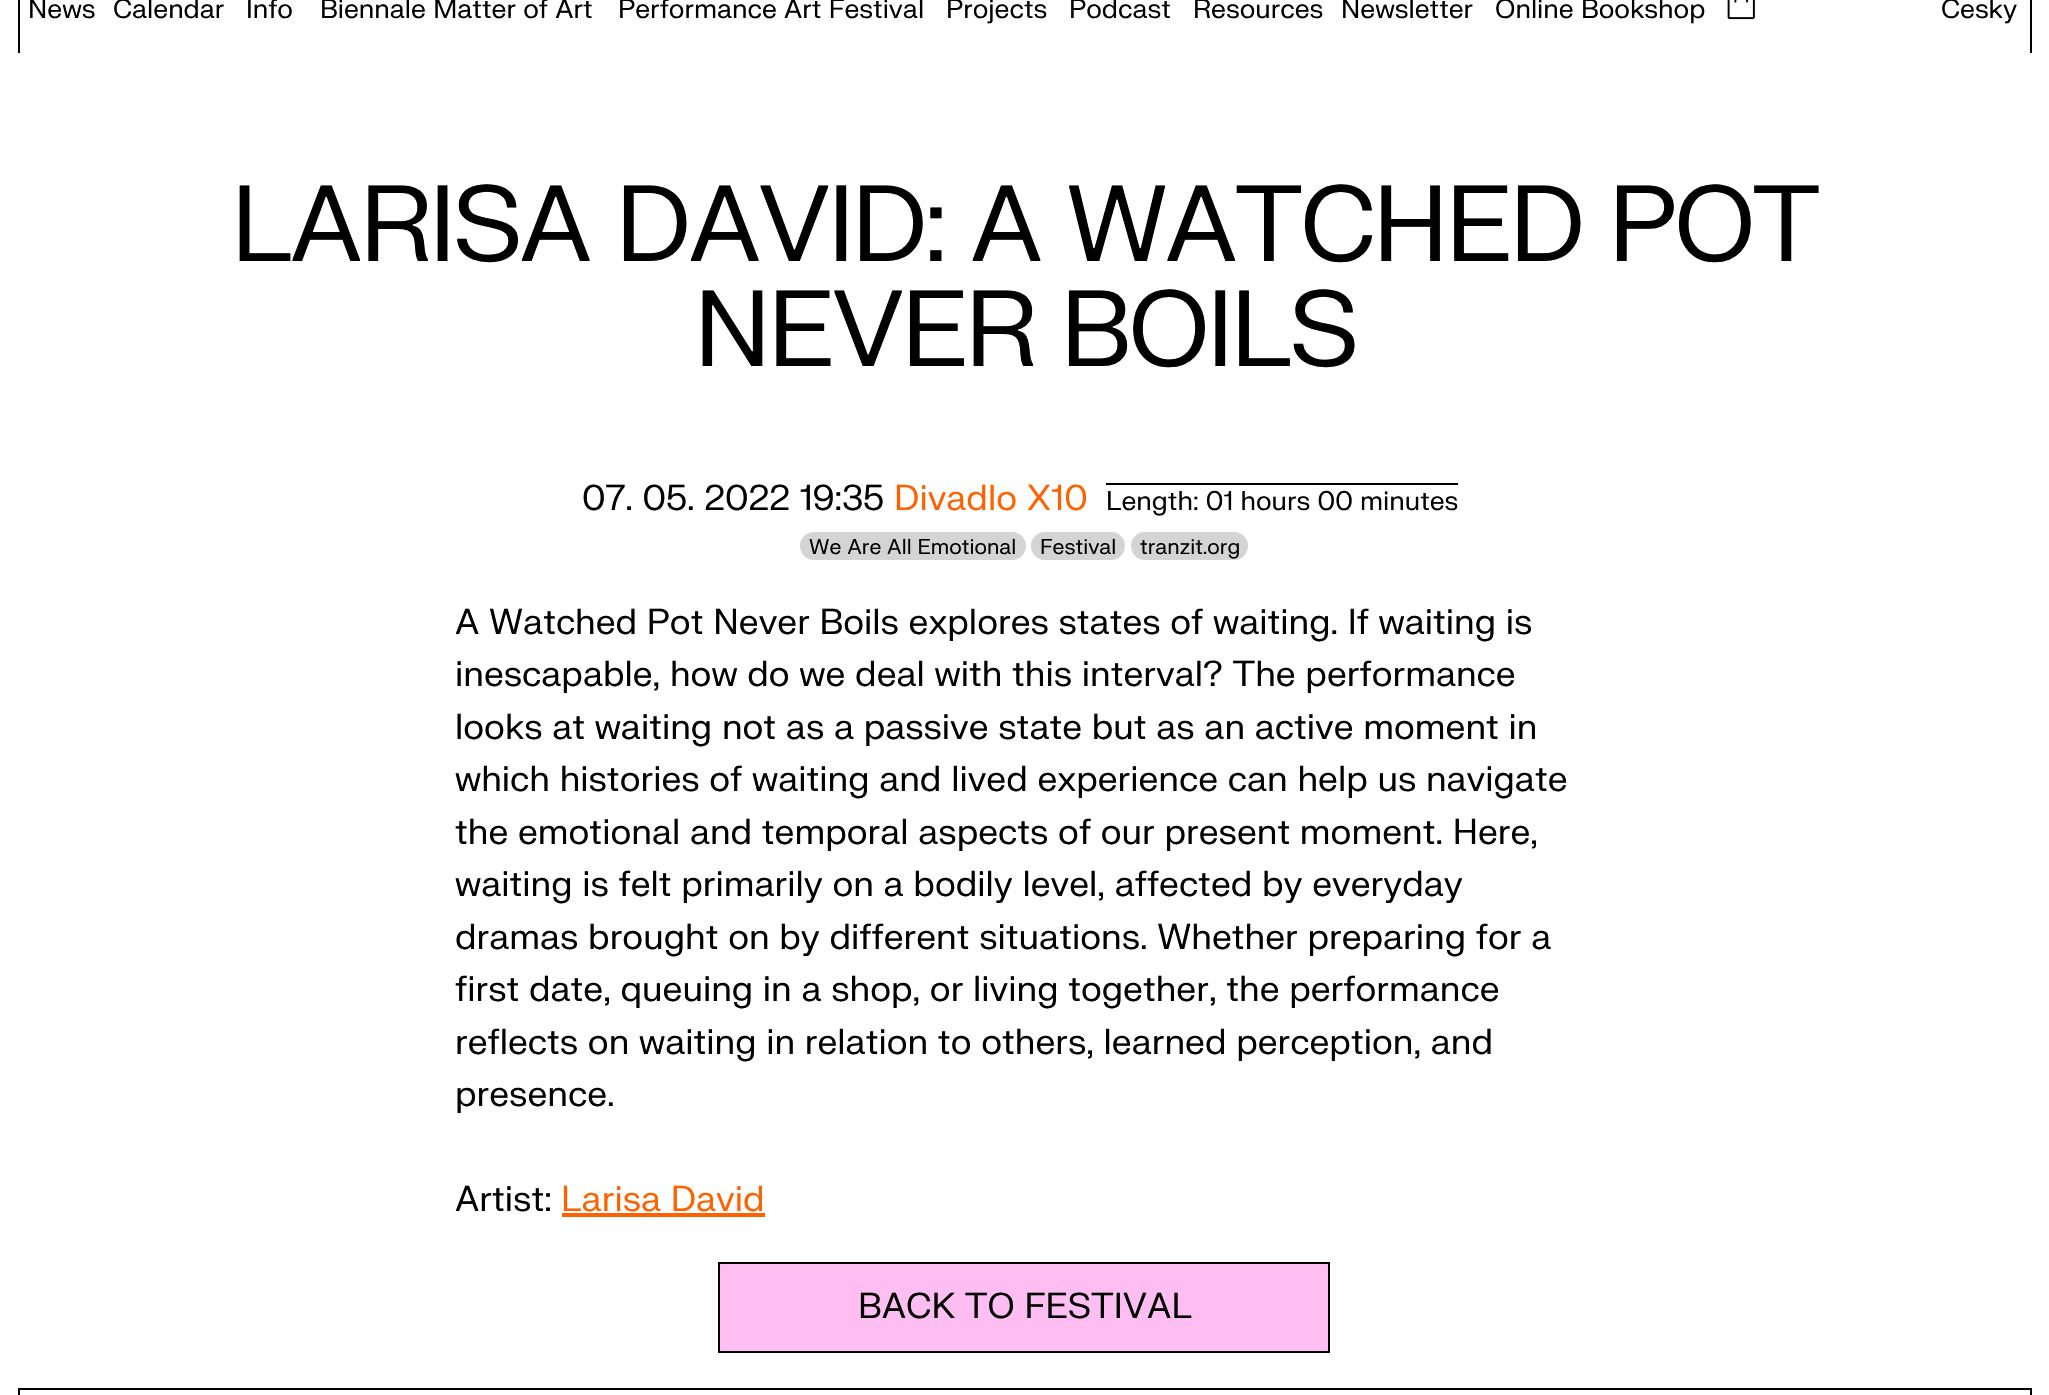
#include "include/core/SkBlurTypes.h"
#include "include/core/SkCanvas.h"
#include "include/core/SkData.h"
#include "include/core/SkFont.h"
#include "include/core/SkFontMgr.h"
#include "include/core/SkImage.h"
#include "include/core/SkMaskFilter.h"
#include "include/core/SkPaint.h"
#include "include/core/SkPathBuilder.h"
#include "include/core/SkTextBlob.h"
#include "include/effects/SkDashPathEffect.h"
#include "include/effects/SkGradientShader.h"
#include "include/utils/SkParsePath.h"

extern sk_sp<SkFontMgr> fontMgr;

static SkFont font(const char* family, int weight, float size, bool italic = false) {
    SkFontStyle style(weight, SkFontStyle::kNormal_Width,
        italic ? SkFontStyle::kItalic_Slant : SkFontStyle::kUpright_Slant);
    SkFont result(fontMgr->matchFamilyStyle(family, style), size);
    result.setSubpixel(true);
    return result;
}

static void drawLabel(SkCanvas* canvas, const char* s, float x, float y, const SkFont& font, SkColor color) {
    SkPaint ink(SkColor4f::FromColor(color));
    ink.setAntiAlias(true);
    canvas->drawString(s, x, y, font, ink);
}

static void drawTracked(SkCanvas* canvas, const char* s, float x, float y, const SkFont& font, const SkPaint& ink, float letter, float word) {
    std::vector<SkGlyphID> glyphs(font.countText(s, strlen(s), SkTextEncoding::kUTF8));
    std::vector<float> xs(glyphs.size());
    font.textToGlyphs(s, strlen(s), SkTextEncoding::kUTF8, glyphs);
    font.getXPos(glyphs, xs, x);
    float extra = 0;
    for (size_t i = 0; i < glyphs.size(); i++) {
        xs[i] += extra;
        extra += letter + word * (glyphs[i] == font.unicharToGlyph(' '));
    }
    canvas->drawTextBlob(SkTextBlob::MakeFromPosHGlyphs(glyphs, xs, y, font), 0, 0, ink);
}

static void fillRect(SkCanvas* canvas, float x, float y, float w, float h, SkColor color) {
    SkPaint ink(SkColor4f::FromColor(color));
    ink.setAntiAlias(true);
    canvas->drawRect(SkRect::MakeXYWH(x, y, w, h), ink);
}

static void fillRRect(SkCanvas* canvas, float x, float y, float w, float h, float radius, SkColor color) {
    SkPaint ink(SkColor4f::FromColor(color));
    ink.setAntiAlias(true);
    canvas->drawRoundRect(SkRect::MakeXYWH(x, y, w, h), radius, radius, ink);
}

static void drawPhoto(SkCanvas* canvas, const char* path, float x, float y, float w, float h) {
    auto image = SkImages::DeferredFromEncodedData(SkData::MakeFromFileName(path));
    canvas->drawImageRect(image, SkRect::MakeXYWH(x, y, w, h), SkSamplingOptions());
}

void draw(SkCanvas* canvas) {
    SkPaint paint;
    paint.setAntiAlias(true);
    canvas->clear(0xFFFFFFFF);
    fillRect(canvas, 2030, 0, 2, 53, 0xFF000000);
    fillRect(canvas, 18, 0, 2, 53, 0xFF000000);
    SkFont font1 = font("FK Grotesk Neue", 400, 26.25f);
    drawLabel(canvas, "News", 28, 18, font1, 0xFF000000);
    drawLabel(canvas, "Calendar", 113, 18, font1, 0xFF000000);
    drawLabel(canvas, "Info", 246, 18, font1, 0xFF000000);
    drawLabel(canvas, "Biennale Matter of Art", 320, 18, font1, 0xFF000000);
    drawLabel(canvas, "Performance Art Festival", 618, 18, font1, 0xFF000000);
    drawLabel(canvas, "Projects", 946, 18, font1, 0xFF000000);
    drawLabel(canvas, "Podcast", 1069, 18, font1, 0xFF000000);
    drawLabel(canvas, "Resources", 1193, 18, font1, 0xFF000000);
    drawLabel(canvas, "Newsletter", 1341, 18, font1, 0xFF000000);
    drawLabel(canvas, "Online Bookshop", 1495, 18, font1, 0xFF000000);
    drawPhoto(canvas, "assets/img1.png", 1727, 0, 28, 20);
    drawLabel(canvas, "Česky", 1941, 18, font1, 0xFF000000);
    SkFont font2 = font("FK Grotesk Neue", 400, 105);
    paint.setColor(0xFF000000);
    drawTracked(canvas, "LARISA DAVID: A WATCHED POT", 231, 261, font2, paint, -3.15f, 0);
    drawTracked(canvas, "NEVER BOILS", 694, 366, font2, paint, -3.15f, 0);
    SkFont font3 = font("FK Grotesk Neue", 400, 35);
    drawLabel(canvas, "07. 05. 2022 19:35", 582, 510, font3, 0xFF000000);
    drawLabel(canvas, "Divadlo X10", 894, 510, font3, 0xFFFF6100);
    drawLabel(canvas, "Length: 01 hours 00 minutes", 1106, 510, font1, 0xFF000000);
    fillRect(canvas, 1106, 483, 352, 2, 0xFF000000);
    fillRRect(canvas, 800, 532, 226, 28, 14, 0xFFD4D4D4);
    SkFont font4 = font("FK Grotesk Neue", 400, 21);
    drawLabel(canvas, "We Are All Emotional", 809, 554, font4, 0xFF000000);
    fillRRect(canvas, 1031, 532, 94, 28, 14, 0xFFD4D4D4);
    drawLabel(canvas, "Festival", 1040, 554, font4, 0xFF000000);
    fillRRect(canvas, 1131, 532, 117, 28, 14, 0xFFD4D4D4);
    drawLabel(canvas, "tranzit.org", 1140, 554, font4, 0xFF000000);
    drawLabel(canvas, "A Watched Pot Never Boils explores states of waiting. If waiting is", 455, 634, font3, 0xFF000000);
    drawLabel(canvas, "inescapable, how do we deal with this interval? The performance", 455, 686, font3, 0xFF000000);
    drawLabel(canvas, "looks at waiting not as a passive state but as an active moment in", 455, 739, font3, 0xFF000000);
    drawLabel(canvas, "which histories of waiting and lived experience can help us navigate", 455, 791, font3, 0xFF000000);
    drawLabel(canvas, "the emotional and temporal aspects of our present moment. Here,", 455, 844, font3, 0xFF000000);
    drawLabel(canvas, "waiting is felt primarily on a bodily level, affected by everyday", 455, 896, font3, 0xFF000000);
    drawLabel(canvas, "dramas brought on by different situations. Whether preparing for a", 455, 949, font3, 0xFF000000);
    drawLabel(canvas, "first date, queuing in a shop, or living together, the performance", 455, 1001, font3, 0xFF000000);
    drawLabel(canvas, "reflects on waiting in relation to others, learned perception, and", 455, 1054, font3, 0xFF000000);
    drawLabel(canvas, "presence.", 455, 1106, font3, 0xFF000000);
    drawLabel(canvas, "Artist:", 455, 1211, font3, 0xFF000000);
    drawLabel(canvas, "Larisa David", 561, 1211, font3, 0xFFFF6100);
    fillRect(canvas, 562, 1213, 203, 4, 0xFFFF6100);
    paint.setColor(0xFFFFBEF1);
    canvas->drawRect(SkRect::MakeXYWH(719, 1263, 610, 89), paint);
    paint.setStroke(true);
    paint.setStrokeWidth(2);
    paint.setColor(0xFF000000);
    canvas->drawRect(SkRect::MakeXYWH(719, 1263, 610, 89), paint);
    drawLabel(canvas, "BACK TO FESTIVAL", 858, 1318, font3, 0xFF000000);
    fillRect(canvas, 18, 1388, 2014, 2, 0xFF000000);
    fillRect(canvas, 2030, 1388, 2, 7, 0xFF000000);
    fillRect(canvas, 18, 1388, 2, 7, 0xFF000000);
}
